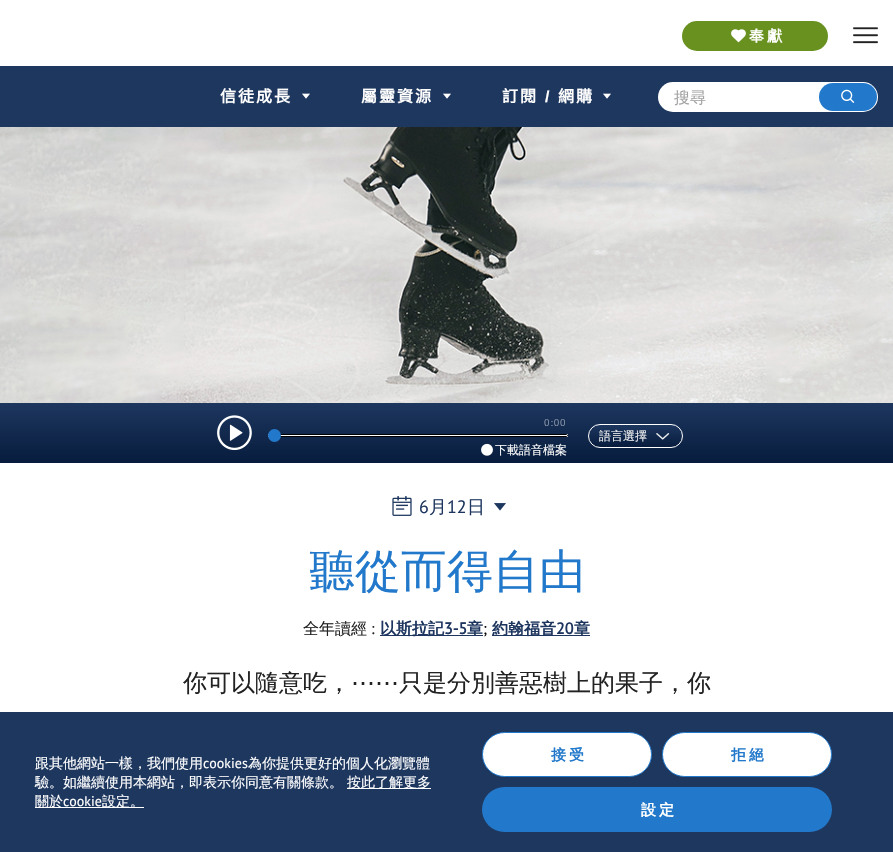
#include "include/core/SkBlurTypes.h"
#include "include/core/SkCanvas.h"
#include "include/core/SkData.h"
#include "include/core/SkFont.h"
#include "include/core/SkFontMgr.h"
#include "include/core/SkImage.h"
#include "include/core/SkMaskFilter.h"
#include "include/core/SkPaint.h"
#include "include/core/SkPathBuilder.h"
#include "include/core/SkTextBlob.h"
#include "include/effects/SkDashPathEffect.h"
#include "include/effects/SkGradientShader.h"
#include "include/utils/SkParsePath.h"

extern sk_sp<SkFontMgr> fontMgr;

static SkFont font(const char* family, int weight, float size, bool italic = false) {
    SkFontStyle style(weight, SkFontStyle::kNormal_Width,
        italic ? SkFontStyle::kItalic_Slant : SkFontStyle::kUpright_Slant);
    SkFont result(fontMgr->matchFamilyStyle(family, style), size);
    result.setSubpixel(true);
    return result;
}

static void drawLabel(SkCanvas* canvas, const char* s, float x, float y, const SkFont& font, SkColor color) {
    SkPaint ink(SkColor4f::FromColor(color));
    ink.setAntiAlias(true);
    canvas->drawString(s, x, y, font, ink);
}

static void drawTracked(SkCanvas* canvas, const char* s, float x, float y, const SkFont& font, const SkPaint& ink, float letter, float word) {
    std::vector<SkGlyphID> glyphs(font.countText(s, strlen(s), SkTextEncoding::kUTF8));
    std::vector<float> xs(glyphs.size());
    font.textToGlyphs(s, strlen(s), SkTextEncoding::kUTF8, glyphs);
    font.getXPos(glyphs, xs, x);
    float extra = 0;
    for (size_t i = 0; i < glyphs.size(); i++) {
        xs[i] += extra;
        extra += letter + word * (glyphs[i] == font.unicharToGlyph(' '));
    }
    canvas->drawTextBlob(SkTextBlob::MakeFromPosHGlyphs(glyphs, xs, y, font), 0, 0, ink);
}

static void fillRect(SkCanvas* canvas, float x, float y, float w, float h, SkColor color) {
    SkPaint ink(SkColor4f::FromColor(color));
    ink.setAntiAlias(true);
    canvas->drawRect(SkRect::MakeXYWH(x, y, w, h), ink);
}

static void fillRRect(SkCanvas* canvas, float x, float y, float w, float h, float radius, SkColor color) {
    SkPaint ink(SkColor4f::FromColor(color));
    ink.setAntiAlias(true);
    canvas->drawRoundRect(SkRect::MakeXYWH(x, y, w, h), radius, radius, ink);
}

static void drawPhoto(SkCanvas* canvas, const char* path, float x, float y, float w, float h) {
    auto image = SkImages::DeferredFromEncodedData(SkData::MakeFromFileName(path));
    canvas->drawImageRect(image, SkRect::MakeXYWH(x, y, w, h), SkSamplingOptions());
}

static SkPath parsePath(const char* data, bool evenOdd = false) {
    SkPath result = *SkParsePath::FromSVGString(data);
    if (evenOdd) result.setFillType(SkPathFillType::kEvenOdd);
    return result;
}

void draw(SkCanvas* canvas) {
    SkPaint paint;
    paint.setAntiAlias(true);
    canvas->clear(0xFFFFFFFF);
    fillRRect(canvas, 682, 21, 146, 30, 15, 0xFF69911F);
    drawPhoto(canvas, "assets/img1.png", 731, 29, 15, 14);
    SkFont font1 = font("WenQuanYi Zen Hei", 700, 15);
    paint.setColor(0xFFFFFFFF);
    drawTracked(canvas, "奉獻", 749, 41, font1, paint, 3, 0);
    drawPhoto(canvas, "assets/img2.png", 853, 27, 25, 17);
    fillRect(canvas, 0, 66, 893, 61, 0xFF1E375F);
    SkFont font2 = font("Noto Sans CJK TC", 700, 16);
    drawTracked(canvas, "信徒成長", 220, 102, font2, paint, 2, 0);
    drawPhoto(canvas, "assets/img3.png", 302, 93, 8, 6);
    drawTracked(canvas, "屬靈資源", 361, 102, font2, paint, 2, 0);
    drawPhoto(canvas, "assets/img3.png", 443, 93, 8, 6);
    drawTracked(canvas, "訂閱", 502, 102, font2, paint, 2, 0);
    SkFont font3 = font("Liberation Sans", 700, 16);
    drawTracked(canvas, "/", 545, 102, font3, paint, 2, 0);
    drawTracked(canvas, "網購", 558, 102, font2, paint, 2, 0);
    drawPhoto(canvas, "assets/img3.png", 603, 93, 8, 6);
    fillRRect(canvas, 658, 82, 220, 30, 15, 0xFFFFFFFF);
    SkFont font4 = font("WenQuanYi Zen Hei", 500, 16);
    drawLabel(canvas, "搜尋", 674, 103, font4, 0xFFA2A2A2);
    fillRRect(canvas, 819, 83, 58, 28, 14, 0xFF2279CB);
    drawPhoto(canvas, "assets/img4.png", 841, 89, 14, 14);
    drawPhoto(canvas, "assets/img5.png", 0, 127, 893, 276);
    {
        const SkColor colors[] = {0xFF1E375F, 0xFF071C3D};
        const float stops[] = {0, 1};
        const SkPoint ends[] = {{447, 403}, {447, 463}};
        paint.setShader(SkGradientShader::MakeLinear(ends, colors, stops, 2, SkTileMode::kClamp));
        paint.setAlpha(255);
    }
    canvas->drawRect(SkRect::MakeXYWH(0, 403, 893, 60), paint);
    drawPhoto(canvas, "assets/img6.png", 217, 415, 35, 35);
    SkFont font5 = font("PT Sans", 400, 10);
    paint.setShader(nullptr);
    paint.setColor(0xFF8895A8);
    drawTracked(canvas, "0:00", 544, 426, font5, paint, 1, 0);
    fillRect(canvas, 268, 434, 300, 3, 0xFFFFFFFF);
    paint.setStroke(true);
    paint.setStrokeWidth(1);
    paint.setColor(0xFF010101);
    canvas->drawRoundRect(SkRect::MakeXYWH(268.5f, 434.5f, 299, 2), 1, 1, paint);
    paint.setStroke(false);
    paint.setColor(0xFF2279CB);
    canvas->drawCircle(274.5f, 435.5f, 6.5f, paint);
    drawPhoto(canvas, "assets/img7.png", 481, 443, 12, 13);
    SkFont font6 = font("WenQuanYi Zen Hei", 500, 12);
    drawLabel(canvas, "下載語音檔案", 495, 454, font6, 0xFFFFFFFF);
    canvas->save();
    canvas->clipPath(parsePath("M600 424H671C677.5 424 683 429.5 683 436C683 442.5 677.5 448 671 448H600C593.5 448 588 442.5 588 436C588 429.5 593.5 424 600 424Z"), true);
    {
        const SkColor colors[] = {0xFF1E375F, 0xFF071C3D};
        const float stops[] = {0, 1};
        const SkPoint ends[] = {{636, 425}, {636, 447}};
        paint.setShader(SkGradientShader::MakeLinear(ends, colors, stops, 2, SkTileMode::kClamp));
        paint.setAlpha(255);
    }
    canvas->drawRect(SkRect::MakeXYWH(588, 425, 95, 22), paint);
    canvas->restore();
    paint.setStroke(true);
    paint.setShader(nullptr);
    paint.setColor(0xFFFFFFFF);
    canvas->drawRoundRect(SkRect::MakeXYWH(588.5f, 424.5f, 94, 23), 11.5f, 11.5f, paint);
    drawLabel(canvas, "語言選擇", 599, 440, font6, 0xFFF0F0F0);
    drawPhoto(canvas, "assets/img8.png", 656, 433, 14, 7);
    drawPhoto(canvas, "assets/img9.png", 392, 496, 20, 20);
    SkFont font7 = font("PT Sans", 400, 18);
    drawLabel(canvas, "6", 419, 513, font7, 0xFF1E365F);
    SkFont font8 = font("WenQuanYi Zen Hei", 500, 18);
    drawLabel(canvas, "月", 429, 513, font8, 0xFF1E365F);
    drawLabel(canvas, "12", 447, 513, font7, 0xFF1E365F);
    drawLabel(canvas, "日", 467, 513, font8, 0xFF1E365F);
    drawPhoto(canvas, "assets/img10.png", 494, 503, 12, 8);
    SkFont font9 = font("WenQuanYi Zen Hei", 500, 46);
    drawLabel(canvas, "聽從而得自由", 309, 587, font9, 0xFF2279CB);
    drawLabel(canvas, "全年讀經", 303, 634, font4, 0xFF222222);
    SkFont font10 = font("PT Sans", 400, 16);
    drawLabel(canvas, ":", 371, 634, font10, 0xFF222222);
    fillRect(canvas, 380, 635, 103, 1, 0xFF1E365F);
    SkFont font11 = font("WenQuanYi Zen Hei", 700, 16);
    drawLabel(canvas, "以斯拉記", 380, 634, font11, 0xFF1E365F);
    SkFont font12 = font("PT Sans", 700, 16);
    drawLabel(canvas, "3-5", 444, 634, font12, 0xFF1E365F);
    drawLabel(canvas, "章", 467, 634, font11, 0xFF1E365F);
    drawLabel(canvas, ";", 483, 634, font10, 0xFF000000);
    fillRect(canvas, 492, 635, 98, 1, 0xFF1E365F);
    drawLabel(canvas, "約翰福音", 492, 634, font11, 0xFF1E365F);
    drawLabel(canvas, "20", 556, 634, font12, 0xFF1E365F);
    drawLabel(canvas, "章", 574, 634, font11, 0xFF1E365F);
    SkFont font13 = font("WenQuanYi Zen Hei", 500, 24);
    drawLabel(canvas, "你可以隨意吃，", 183, 691, font13, 0xFF222222);
    SkFont font14 = font("DejaVu Sans", 400, 24);
    drawLabel(canvas, "⋯⋯", 351, 691, font14, 0xFF222222);
    drawLabel(canvas, "只是分別善惡樹上的果子，你", 399, 691, font13, 0xFF222222);
    fillRect(canvas, 0, 712, 893, 140, 0xFF1E375F);
    SkFont font15 = font("WenQuanYi Zen Hei", 500, 14);
    drawLabel(canvas, "跟其他網站一樣，我們使用", 35, 768, font15, 0xFFFFFFFF);
    SkFont font16 = font("PT Sans", 400, 14);
    drawLabel(canvas, "cookies", 203, 768, font16, 0xFFFFFFFF);
    drawLabel(canvas, "為你提供更好的個人化瀏覽體", 248, 768, font15, 0xFFFFFFFF);
    drawLabel(canvas, "驗。如繼續使用本網站，即表示你同意有關條款。", 35, 787, font15, 0xFFFFFFFF);
    fillRect(canvas, 347, 788, 84, 1, 0xFFFFFFFF);
    drawLabel(canvas, "按此了解更多", 347, 787, font15, 0xFFFFFFFF);
    fillRect(canvas, 35, 807, 109, 1, 0xFFFFFFFF);
    drawLabel(canvas, "關於", 35, 806, font15, 0xFFFFFFFF);
    drawLabel(canvas, "cookie", 63, 806, font16, 0xFFFFFFFF);
    drawLabel(canvas, "設定。", 102, 806, font15, 0xFFFFFFFF);
    paint.setStroke(false);
    canvas->drawRoundRect(SkRect::MakeXYWH(482.5f, 732.5f, 169, 44), 22, 22, paint);
    paint.setStroke(true);
    paint.setColor(0xFF2279CB);
    canvas->drawRoundRect(SkRect::MakeXYWH(482.5f, 732.5f, 169, 44), 22, 22, paint);
    paint.setStroke(false);
    drawTracked(canvas, "接受", 551, 760, font1, paint, 3, 0);
    paint.setColor(0xFFFFFFFF);
    canvas->drawRoundRect(SkRect::MakeXYWH(662.5f, 732.5f, 169, 44), 22, 22, paint);
    paint.setStroke(true);
    paint.setColor(0xFF2279CB);
    canvas->drawRoundRect(SkRect::MakeXYWH(662.5f, 732.5f, 169, 44), 22, 22, paint);
    paint.setStroke(false);
    drawTracked(canvas, "拒絕", 731, 760, font1, paint, 3, 0);
    fillRRect(canvas, 482, 787, 350, 45, 22.5f, 0xFF2279CB);
    paint.setColor(0xFFFFFFFF);
    drawTracked(canvas, "設定", 641, 815, font1, paint, 3, 0);
}
